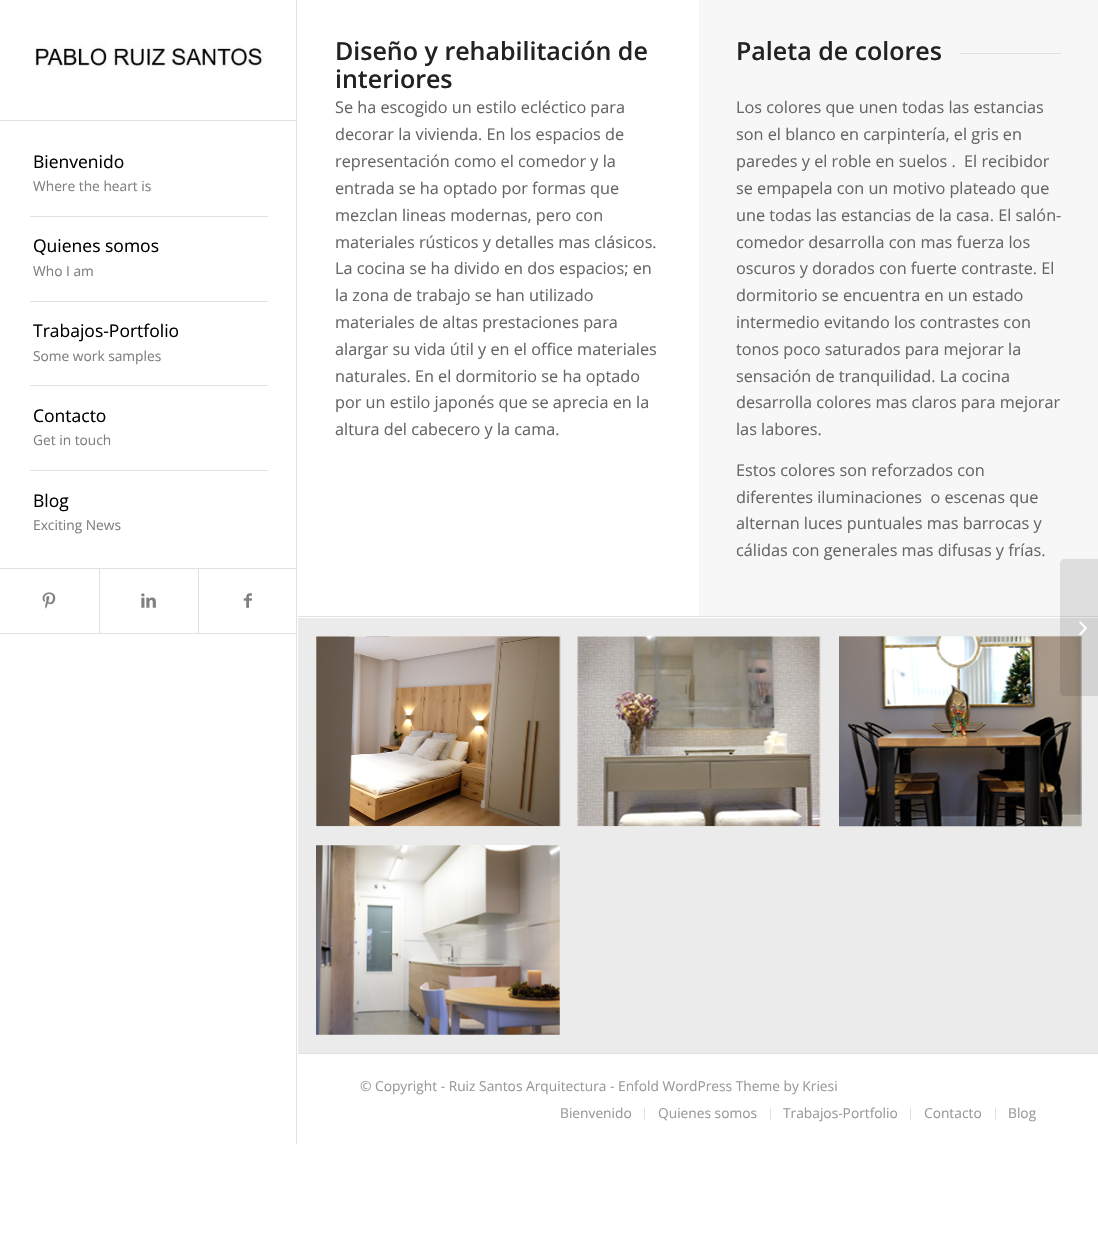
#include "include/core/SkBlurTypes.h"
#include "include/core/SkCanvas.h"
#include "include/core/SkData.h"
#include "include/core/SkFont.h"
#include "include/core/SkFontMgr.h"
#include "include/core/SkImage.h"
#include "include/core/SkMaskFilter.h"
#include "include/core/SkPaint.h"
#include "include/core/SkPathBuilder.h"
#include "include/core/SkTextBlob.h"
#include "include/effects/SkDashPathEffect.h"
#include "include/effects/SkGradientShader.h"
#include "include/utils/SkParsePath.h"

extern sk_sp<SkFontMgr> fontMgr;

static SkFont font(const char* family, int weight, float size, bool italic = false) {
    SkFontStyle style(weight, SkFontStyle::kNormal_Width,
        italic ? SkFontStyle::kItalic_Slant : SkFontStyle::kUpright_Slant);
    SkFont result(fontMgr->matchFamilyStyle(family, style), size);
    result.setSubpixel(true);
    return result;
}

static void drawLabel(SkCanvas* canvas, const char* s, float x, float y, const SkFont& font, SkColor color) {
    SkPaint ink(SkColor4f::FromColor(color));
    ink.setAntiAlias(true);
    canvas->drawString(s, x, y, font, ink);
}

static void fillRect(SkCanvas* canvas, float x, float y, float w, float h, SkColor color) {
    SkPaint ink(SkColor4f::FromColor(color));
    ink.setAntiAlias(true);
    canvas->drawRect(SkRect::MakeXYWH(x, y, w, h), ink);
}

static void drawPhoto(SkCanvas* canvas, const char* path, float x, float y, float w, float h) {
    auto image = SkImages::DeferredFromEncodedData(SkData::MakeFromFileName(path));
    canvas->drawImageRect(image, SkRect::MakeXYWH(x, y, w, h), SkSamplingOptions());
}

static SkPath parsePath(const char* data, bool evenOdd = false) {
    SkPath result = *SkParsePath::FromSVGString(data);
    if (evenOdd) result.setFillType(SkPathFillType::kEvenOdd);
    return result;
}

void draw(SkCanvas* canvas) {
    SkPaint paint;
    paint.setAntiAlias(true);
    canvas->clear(0xFFFFFFFF);
    fillRect(canvas, 0, 633, 296, 1, 0xFFE1E1E1);
    fillRect(canvas, 0, 120, 296, 1, 0xFFE1E1E1);
    drawPhoto(canvas, "assets/img1.png", 33, 43, 231, 25);
    fillRect(canvas, 30, 216, 238, 1, 0xFFE1E1E1);
    SkFont font1 = font("Open Sans", 400, 17.5f);
    drawLabel(canvas, "Bienvenido", 33, 168, font1, 0xFF000000);
    SkFont font2 = font("Open Sans", 400, 13.75f);
    drawLabel(canvas, "Where the heart is", 33, 191, font2, 0xFF808080);
    fillRect(canvas, 30, 301, 238, 1, 0xFFE1E1E1);
    drawLabel(canvas, "Quienes somos", 33, 252, font1, 0xFF000000);
    drawLabel(canvas, "Who I am", 33, 276, font2, 0xFF808080);
    fillRect(canvas, 30, 385, 238, 1, 0xFFE1E1E1);
    drawLabel(canvas, "Trabajos-Portfolio", 33, 337, font1, 0xFF000000);
    drawLabel(canvas, "Some work samples", 33, 361, font2, 0xFF808080);
    fillRect(canvas, 30, 470, 238, 1, 0xFFE1E1E1);
    drawLabel(canvas, "Contacto", 33, 422, font1, 0xFF000000);
    drawLabel(canvas, "Get in touch", 33, 445, font2, 0xFF808080);
    drawLabel(canvas, "Blog", 33, 507, font1, 0xFF000000);
    drawLabel(canvas, "Exciting News", 33, 530, font2, 0xFF808080);
    fillRect(canvas, 0, 568, 296, 1, 0xFFE1E1E1);
    drawPhoto(canvas, "assets/img2.png", 42, 592, 14, 17);
    fillRect(canvas, 99, 569, 1, 64, 0xFFE1E1E1);
    drawPhoto(canvas, "assets/img3.png", 141, 593, 15, 15);
    fillRect(canvas, 198, 569, 1, 64, 0xFFE1E1E1);
    drawPhoto(canvas, "assets/img4.png", 243, 593, 9, 15);
    fillRect(canvas, 296, 0, 1, 1144, 0xFFE1E1E1);
    SkFont font3 = font("Open Sans", 600, 25);
    drawLabel(canvas, "Diseño y rehabilitación de", 335, 60, font3, 0xFF222222);
    drawLabel(canvas, "interiores", 335, 88, font3, 0xFF222222);
    SkFont font4 = font("Open Sans", 400, 16.25f);
    drawLabel(canvas, "Se ha escogido un estilo ecléctico para", 335, 113, font4, 0xFF666666);
    drawLabel(canvas, "decorar la vivienda. En los espacios de", 335, 140, font4, 0xFF666666);
    drawLabel(canvas, "representación como el comedor y la", 335, 167, font4, 0xFF666666);
    drawLabel(canvas, "entrada se ha optado por formas que", 335, 194, font4, 0xFF666666);
    drawLabel(canvas, "mezclan lineas modernas, pero con", 335, 221, font4, 0xFF666666);
    drawLabel(canvas, "materiales rústicos y detalles mas clásicos.", 335, 248, font4, 0xFF666666);
    drawLabel(canvas, "La cocina se ha divido en dos espacios; en", 335, 274, font4, 0xFF666666);
    drawLabel(canvas, "la zona de trabajo se han utilizado", 335, 301, font4, 0xFF666666);
    drawLabel(canvas, "materiales de altas prestaciones para", 335, 328, font4, 0xFF666666);
    drawLabel(canvas, "alargar su vida útil y en el office materiales", 335, 355, font4, 0xFF666666);
    drawLabel(canvas, "naturales. En el dormitorio se ha optado", 335, 382, font4, 0xFF666666);
    drawLabel(canvas, "por un estilo japonés que se aprecia en la", 335, 408, font4, 0xFF666666);
    drawLabel(canvas, "altura del cabecero y la cama.", 335, 435, font4, 0xFF666666);
    fillRect(canvas, 699, 0, 399, 616, 0xFFF7F7F7);
    drawLabel(canvas, "Paleta de colores", 736, 60, font3, 0xFF222222);
    fillRect(canvas, 960, 53, 101, 1, 0xFFE1E1E1);
    drawLabel(canvas, "Los colores que unen todas las estancias", 736, 113, font4, 0xFF666666);
    drawLabel(canvas, "son el blanco en carpintería, el gris en", 736, 140, font4, 0xFF666666);
    drawLabel(canvas, "paredes y el roble en suelos .  El recibidor", 736, 167, font4, 0xFF666666);
    drawLabel(canvas, "se empapela con un motivo plateado que", 736, 194, font4, 0xFF666666);
    drawLabel(canvas, "une todas las estancias de la casa. El salón-", 736, 221, font4, 0xFF666666);
    drawLabel(canvas, "comedor desarrolla con mas fuerza los", 736, 248, font4, 0xFF666666);
    drawLabel(canvas, "oscuros y dorados con fuerte contraste. El", 736, 274, font4, 0xFF666666);
    drawLabel(canvas, "dormitorio se encuentra en un estado", 736, 301, font4, 0xFF666666);
    drawLabel(canvas, "intermedio evitando los contrastes con", 736, 328, font4, 0xFF666666);
    drawLabel(canvas, "tonos poco saturados para mejorar la", 736, 355, font4, 0xFF666666);
    drawLabel(canvas, "sensación de tranquilidad. La cocina", 736, 382, font4, 0xFF666666);
    drawLabel(canvas, "desarrolla colores mas claros para mejorar", 736, 408, font4, 0xFF666666);
    drawLabel(canvas, "las labores.", 736, 435, font4, 0xFF666666);
    drawLabel(canvas, "Estos colores son reforzados con", 736, 476, font4, 0xFF666666);
    drawLabel(canvas, "diferentes iluminaciones  o escenas que", 736, 503, font4, 0xFF666666);
    drawLabel(canvas, "alternan luces puntuales mas barrocas y", 736, 529, font4, 0xFF666666);
    drawLabel(canvas, "cálidas con generales mas difusas y frías.", 736, 556, font4, 0xFF666666);
    fillRect(canvas, 298, 616, 800, 1, 0xFFE1E1E1);
    fillRect(canvas, 298, 618, 800, 435, 0xFFEBEBEB);
    fillRect(canvas, 316, 636, 244, 190, 0xFFFFFFFF);
    drawPhoto(canvas, "assets/img5.png", 316, 636, 245, 191);
    fillRect(canvas, 578, 636, 242, 190, 0xFFFFFFFF);
    drawPhoto(canvas, "assets/img6.png", 577, 636, 244, 191);
    fillRect(canvas, 839, 636, 242, 190, 0xFFFFFFFF);
    drawPhoto(canvas, "assets/img7.png", 839, 636, 243, 191);
    fillRect(canvas, 316, 845, 244, 190, 0xFFFFFFFF);
    drawPhoto(canvas, "assets/img8.png", 316, 845, 244, 190);
    fillRect(canvas, 298, 1053, 800, 1, 0xFFE1E1E1);
    drawLabel(canvas, "© Copyright - Ruiz Santos Arquitectura - Enfold WordPress Theme by Kriesi", 360, 1091, font2, 0xFF999999);
    drawLabel(canvas, "Bienvenido", 560, 1118, font2, 0xFF999999);
    fillRect(canvas, 644, 1108, 1, 12, 0xFFE1E1E1);
    drawLabel(canvas, "Quienes somos", 658, 1118, font2, 0xFF999999);
    fillRect(canvas, 770, 1108, 1, 12, 0xFFE1E1E1);
    drawLabel(canvas, "Trabajos-Portfolio", 783, 1118, font2, 0xFF999999);
    fillRect(canvas, 910, 1108, 1, 12, 0xFFE1E1E1);
    drawLabel(canvas, "Contacto", 924, 1118, font2, 0xFF999999);
    fillRect(canvas, 995, 1108, 1, 12, 0xFFE1E1E1);
    drawLabel(canvas, "Blog", 1008, 1118, font2, 0xFF999999);
    paint.setColor(0x1A000000);
    canvas->drawPath(parsePath("M1065 559H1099V696H1065C1062 696 1060 694 1060 691V564C1060 561 1062 559 1065 559Z"), paint);
    drawPhoto(canvas, "assets/img9.png", 1079, 621, 8, 14);
}
